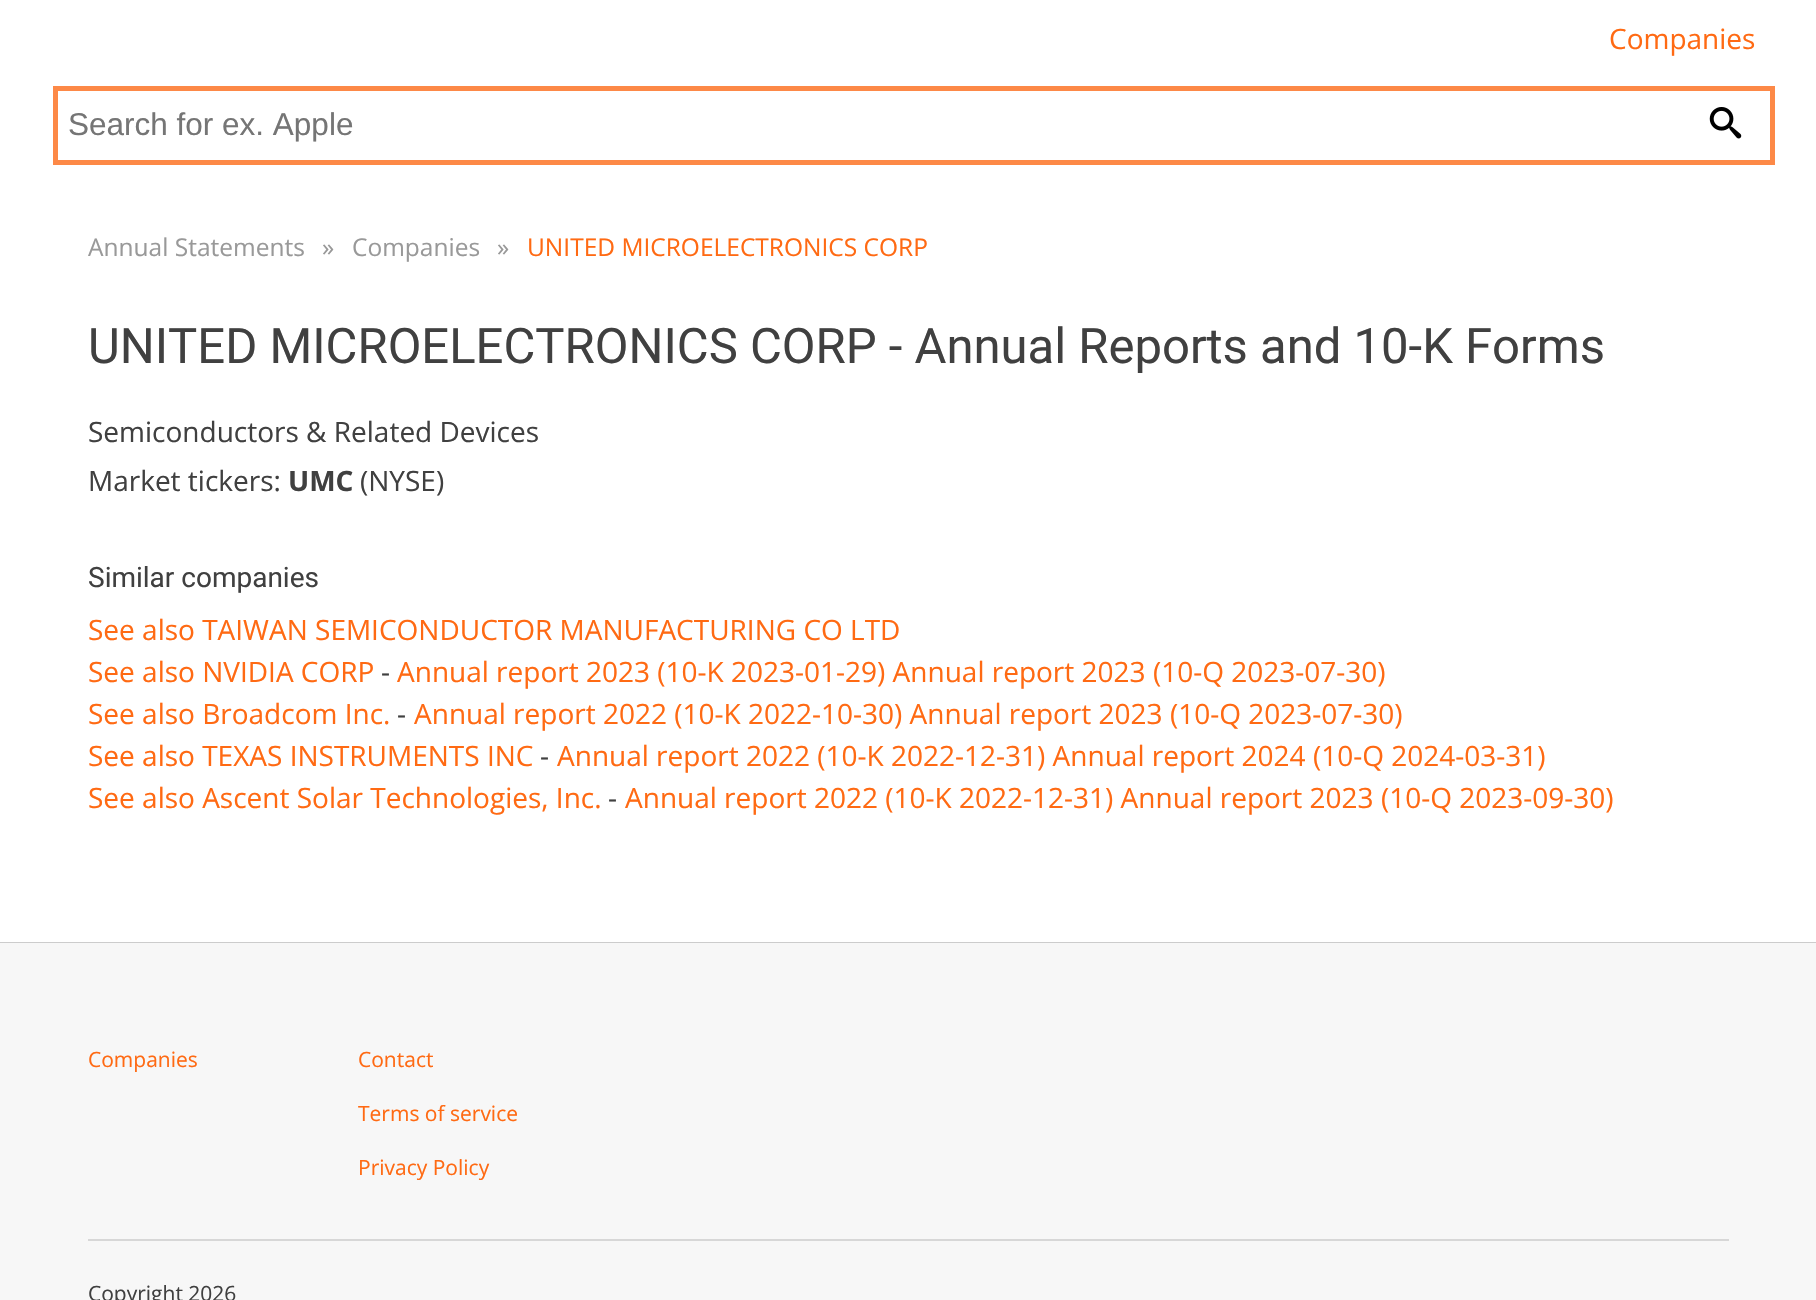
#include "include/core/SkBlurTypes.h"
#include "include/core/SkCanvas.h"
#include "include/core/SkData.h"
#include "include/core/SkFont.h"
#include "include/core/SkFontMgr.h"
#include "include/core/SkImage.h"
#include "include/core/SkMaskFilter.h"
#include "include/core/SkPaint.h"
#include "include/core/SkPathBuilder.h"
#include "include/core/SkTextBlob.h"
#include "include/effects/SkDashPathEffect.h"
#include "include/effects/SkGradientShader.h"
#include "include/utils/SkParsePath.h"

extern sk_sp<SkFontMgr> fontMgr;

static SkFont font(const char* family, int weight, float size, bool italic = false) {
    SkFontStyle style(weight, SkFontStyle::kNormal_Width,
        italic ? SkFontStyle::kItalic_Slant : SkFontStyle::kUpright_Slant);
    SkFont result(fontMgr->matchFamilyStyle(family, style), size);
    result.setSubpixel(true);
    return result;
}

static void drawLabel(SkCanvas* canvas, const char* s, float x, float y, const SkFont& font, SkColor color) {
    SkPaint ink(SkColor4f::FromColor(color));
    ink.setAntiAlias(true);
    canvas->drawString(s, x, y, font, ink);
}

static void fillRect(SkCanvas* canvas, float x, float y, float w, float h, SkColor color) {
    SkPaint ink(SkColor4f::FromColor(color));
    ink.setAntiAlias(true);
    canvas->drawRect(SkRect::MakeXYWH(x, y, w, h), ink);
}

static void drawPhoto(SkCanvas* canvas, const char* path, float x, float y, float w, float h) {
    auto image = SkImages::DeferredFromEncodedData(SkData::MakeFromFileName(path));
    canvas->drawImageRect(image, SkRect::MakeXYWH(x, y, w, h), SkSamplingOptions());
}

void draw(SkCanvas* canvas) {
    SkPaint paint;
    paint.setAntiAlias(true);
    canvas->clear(0xFFFFFFFF);
    SkFont font1 = font("Open Sans", 400, 28);
    drawLabel(canvas, "Companies", 1609, 49, font1, 0xFFFF6A13);
    paint.setStroke(true);
    paint.setStrokeWidth(5);
    paint.setColor(0xFFFD8947);
    canvas->drawRect(SkRect::MakeXYWH(55.5f, 88.5f, 1717, 74), paint);
    SkFont font2 = font("Liberation Sans", 400, 31.5f);
    drawLabel(canvas, "Search for ex. Apple", 68, 135, font2, 0xFF757575);
    drawPhoto(canvas, "assets/img1.png", 1709, 107, 33, 32);
    SkFont font3 = font("Open Sans", 400, 24.5f);
    drawLabel(canvas, "Annual Statements", 88, 256, font3, 0xFF999999);
    drawLabel(canvas, "»", 322, 256, font3, 0xFF999999);
    drawLabel(canvas, "Companies", 352, 256, font3, 0xFF999999);
    drawLabel(canvas, "»", 497, 256, font3, 0xFF999999);
    drawLabel(canvas, "UNITED MICROELECTRONICS CORP", 527, 256, font3, 0xFFFF6A13);
    SkFont font4 = font("Roboto", 400, 49);
    drawLabel(canvas, "UNITED MICROELECTRONICS CORP - Annual Reports and 10-K Forms", 88, 363, font4, 0xFF404040);
    drawLabel(canvas, "Semiconductors & Related Devices", 88, 442, font1, 0xFF404040);
    drawLabel(canvas, "Market tickers:", 88, 491, font1, 0xFF404040);
    SkFont font5 = font("Open Sans", 700, 28);
    drawLabel(canvas, "UMC", 288, 491, font5, 0xFF404040);
    drawLabel(canvas, "(NYSE)", 360, 491, font1, 0xFF404040);
    SkFont font6 = font("Roboto", 400, 28);
    drawLabel(canvas, "Similar companies", 88, 587, font6, 0xFF404040);
    drawLabel(canvas, "See also TAIWAN SEMICONDUCTOR MANUFACTURING CO LTD", 88, 640, font1, 0xFFFF6A13);
    drawLabel(canvas, "See also NVIDIA CORP", 88, 682, font1, 0xFFFF6A13);
    drawLabel(canvas, "-", 381, 682, font1, 0xFF404040);
    drawLabel(canvas, "Annual report 2023 (10-K 2023-01-29) Annual report 2023 (10-Q 2023-07-30)", 397, 682, font1, 0xFFFF6A13);
    drawLabel(canvas, "See also Broadcom Inc.", 88, 724, font1, 0xFFFF6A13);
    drawLabel(canvas, "-", 397, 724, font1, 0xFF404040);
    drawLabel(canvas, "Annual report 2022 (10-K 2022-10-30) Annual report 2023 (10-Q 2023-07-30)", 414, 724, font1, 0xFFFF6A13);
    drawLabel(canvas, "See also TEXAS INSTRUMENTS INC", 88, 766, font1, 0xFFFF6A13);
    drawLabel(canvas, "-", 540, 766, font1, 0xFF404040);
    drawLabel(canvas, "Annual report 2022 (10-K 2022-12-31) Annual report 2024 (10-Q 2024-03-31)", 557, 766, font1, 0xFFFF6A13);
    drawLabel(canvas, "See also Ascent Solar Technologies, Inc.", 88, 808, font1, 0xFFFF6A13);
    drawLabel(canvas, "-", 608, 808, font1, 0xFF404040);
    drawLabel(canvas, "Annual report 2022 (10-K 2022-12-31) Annual report 2023 (10-Q 2023-09-30)", 625, 808, font1, 0xFFFF6A13);
    fillRect(canvas, 0, 942, 1816, 1, 0xFFCCCCCC);
    fillRect(canvas, 0, 943, 1816, 357, 0xFFF7F7F7);
    fillRect(canvas, 88, 1239, 1641, 2, 0xFFD7D7D7);
    SkFont font7 = font("Open Sans", 400, 21);
    drawLabel(canvas, "Companies", 88, 1067, font7, 0xFFFF6A13);
    drawLabel(canvas, "Contact", 358, 1067, font7, 0xFFFF6A13);
    drawLabel(canvas, "Terms of service", 358, 1121, font7, 0xFFFF6A13);
    drawLabel(canvas, "Privacy Policy", 358, 1175, font7, 0xFFFF6A13);
    drawLabel(canvas, "Copyright 2026", 88, 1301, font7, 0xFF404040);
}
